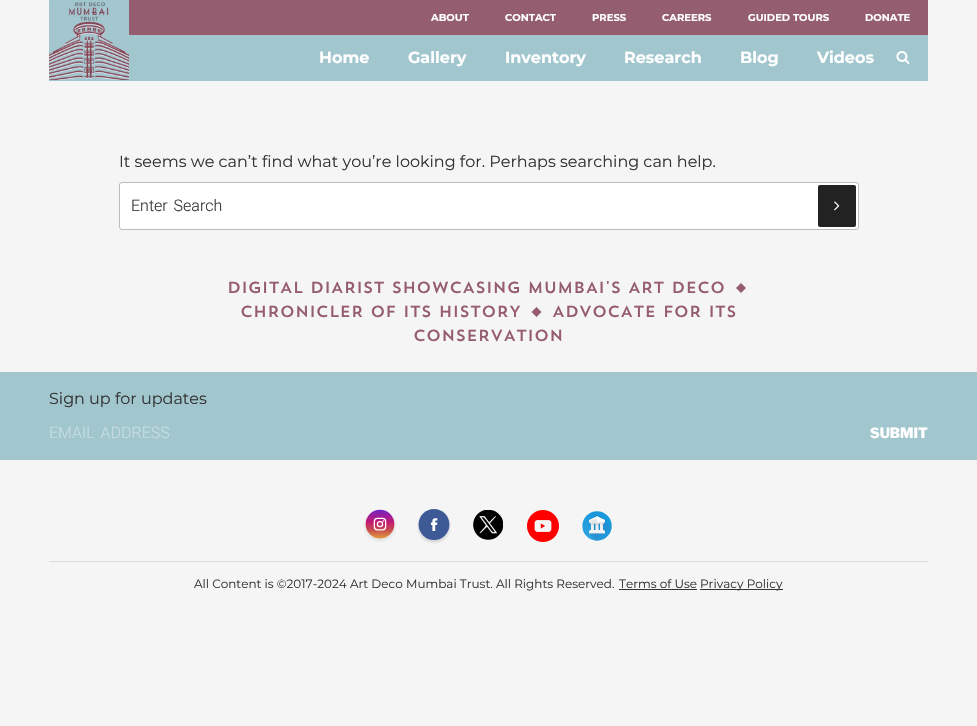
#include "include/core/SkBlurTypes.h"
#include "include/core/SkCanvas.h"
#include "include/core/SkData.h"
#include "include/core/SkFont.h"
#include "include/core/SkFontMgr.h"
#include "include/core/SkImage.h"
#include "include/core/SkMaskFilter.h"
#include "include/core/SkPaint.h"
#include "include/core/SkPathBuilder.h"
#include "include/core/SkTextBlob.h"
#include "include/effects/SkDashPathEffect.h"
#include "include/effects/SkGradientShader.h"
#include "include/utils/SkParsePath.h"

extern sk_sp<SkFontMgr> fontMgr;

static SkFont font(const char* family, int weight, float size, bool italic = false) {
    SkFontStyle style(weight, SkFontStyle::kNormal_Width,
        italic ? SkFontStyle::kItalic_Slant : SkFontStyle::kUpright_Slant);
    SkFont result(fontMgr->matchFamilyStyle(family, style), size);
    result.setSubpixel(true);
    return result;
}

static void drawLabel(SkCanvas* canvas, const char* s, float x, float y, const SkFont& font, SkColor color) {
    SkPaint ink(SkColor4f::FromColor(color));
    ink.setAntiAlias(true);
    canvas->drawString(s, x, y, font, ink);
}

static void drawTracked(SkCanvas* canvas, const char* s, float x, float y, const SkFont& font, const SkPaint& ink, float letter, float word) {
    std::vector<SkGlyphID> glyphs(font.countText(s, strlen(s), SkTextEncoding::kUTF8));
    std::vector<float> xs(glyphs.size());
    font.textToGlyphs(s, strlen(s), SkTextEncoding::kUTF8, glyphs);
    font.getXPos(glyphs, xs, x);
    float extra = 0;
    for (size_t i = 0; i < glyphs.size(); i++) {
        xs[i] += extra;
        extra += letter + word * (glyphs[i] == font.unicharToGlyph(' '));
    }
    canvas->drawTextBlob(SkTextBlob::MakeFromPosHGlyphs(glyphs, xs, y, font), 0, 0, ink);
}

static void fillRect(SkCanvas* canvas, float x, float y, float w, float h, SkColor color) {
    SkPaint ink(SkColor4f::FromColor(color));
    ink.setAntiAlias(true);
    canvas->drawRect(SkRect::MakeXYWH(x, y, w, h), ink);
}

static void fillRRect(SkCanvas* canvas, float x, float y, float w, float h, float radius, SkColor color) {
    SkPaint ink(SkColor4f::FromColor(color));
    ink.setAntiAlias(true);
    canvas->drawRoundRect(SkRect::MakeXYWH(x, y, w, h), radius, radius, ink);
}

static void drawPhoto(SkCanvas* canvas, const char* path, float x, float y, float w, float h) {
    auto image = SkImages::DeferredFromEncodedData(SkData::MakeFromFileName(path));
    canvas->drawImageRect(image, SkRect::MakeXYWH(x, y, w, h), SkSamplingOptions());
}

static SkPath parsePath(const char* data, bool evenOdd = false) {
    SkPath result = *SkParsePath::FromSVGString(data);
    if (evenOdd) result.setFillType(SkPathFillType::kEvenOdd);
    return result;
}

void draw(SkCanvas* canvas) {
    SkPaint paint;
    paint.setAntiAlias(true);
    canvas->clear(0xFFF5F5F5);
    fillRect(canvas, 49, 0, 879, 81, 0xFFA1C6CE);
    drawPhoto(canvas, "assets/img1.png", 49, 2, 80, 78);
    fillRect(canvas, 129, 0, 799, 35, 0xFF945D70);
    SkFont font1 = font("Montserrat", 700, 10);
    drawLabel(canvas, "ABOUT", 431, 21, font1, 0xFFFFFFFF);
    drawLabel(canvas, "CONTACT", 505, 21, font1, 0xFFFFFFFF);
    drawLabel(canvas, "PRESS", 592, 21, font1, 0xFFFFFFFF);
    drawLabel(canvas, "CAREERS", 662, 21, font1, 0xFFFFFFFF);
    drawLabel(canvas, "GUIDED TOURS", 748, 21, font1, 0xFFFFFFFF);
    drawLabel(canvas, "DONATE", 865, 21, font1, 0xFFFFFFFF);
    SkFont font2 = font("Montserrat", 700, 16);
    drawLabel(canvas, "Home", 319, 63, font2, 0xFFFFFFFF);
    drawLabel(canvas, "Gallery", 408, 63, font2, 0xFFFFFFFF);
    drawLabel(canvas, "Inventory", 505, 63, font2, 0xFFFFFFFF);
    drawLabel(canvas, "Research", 624, 63, font2, 0xFFFFFFFF);
    drawLabel(canvas, "Blog", 740, 63, font2, 0xFFFFFFFF);
    drawLabel(canvas, "Videos", 817, 63, font2, 0xFFFFFFFF);
    drawPhoto(canvas, "assets/img2.png", 896, 51, 14, 13);
    SkFont font3 = font("Montserrat", 400, 16);
    drawLabel(canvas, "It seems we can’t find what you’re looking for. Perhaps searching can help.", 119, 167, font3, 0xFF343434);
    paint.setColor(0xFFFFFFFF);
    canvas->drawRoundRect(SkRect::MakeXYWH(119.5f, 182.5f, 739, 47), 2.5f, 2.5f, paint);
    paint.setStroke(true);
    paint.setStrokeWidth(1);
    paint.setColor(0xFFBBBBBB);
    canvas->drawRoundRect(SkRect::MakeXYWH(119.5f, 182.5f, 739, 47), 2.5f, 2.5f, paint);
    SkFont font4 = font("Roboto", 300, 16);
    paint.setStroke(false);
    paint.setColor(0xFF343434);
    drawTracked(canvas, "Enter Search", 131, 211, font4, paint, 0, 2);
    fillRRect(canvas, 818, 185, 38, 42, 2, 0xFF222222);
    drawPhoto(canvas, "assets/img3.png", 834, 201, 6, 10);
    SkFont font5 = font("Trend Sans", 200, 16);
    drawLabel(canvas, "DIGITAL DIARIST SHOWCASING MUMBAI'S ART DECO", 227, 293, font5, 0xFF965D70);
    paint.setColor(0xFF965D70);
    canvas->drawPath(parsePath("M746 288L741 293L736 288L741 283Z"), paint);
    drawLabel(canvas, "CHRONICLER OF ITS HISTORY", 240, 317, font5, 0xFF965D70);
    canvas->drawPath(parsePath("M541.5 312L536.5 317L531.5 312L536.5 307Z"), paint);
    drawLabel(canvas, "ADVOCATE FOR ITS", 552, 317, font5, 0xFF965D70);
    drawLabel(canvas, "CONSERVATION", 413, 341, font5, 0xFF965D70);
    fillRect(canvas, 0, 372, 977, 88, 0xFFA1C6CE);
    drawLabel(canvas, "Sign up for updates", 49, 404, font3, 0xFF343434);
    paint.setColor(0xFFC9DEE3);
    drawTracked(canvas, "EMAIL ADDRESS", 49, 438, font4, paint, 0, 2);
    SkFont font6 = font("Libre Franklin", 100, 14);
    drawLabel(canvas, "SUBMIT", 870, 438, font6, 0xFFFFFFFF);
    drawPhoto(canvas, "assets/img4.png", 364, 509, 32, 33);
    drawPhoto(canvas, "assets/img5.png", 417, 509, 34, 35);
    drawPhoto(canvas, "assets/img6.png", 473, 510, 30, 30);
    drawPhoto(canvas, "assets/img7.png", 527, 510, 32, 32);
    drawPhoto(canvas, "assets/img8.png", 582, 511, 30, 30);
    fillRect(canvas, 49, 561, 879, 1, 0xFFDDDDDD);
    SkFont font7 = font("Montserrat", 400, 12);
    drawLabel(canvas, "All Content is ©2017-2024 Art Deco Mumbai Trust. All Rights Reserved.", 194, 588, font7, 0xFF343434);
    drawLabel(canvas, "Terms of Use", 619, 588, font7, 0xFF343434);
    fillRect(canvas, 619, 589, 78, 1, 0xFF343434);
    fillRect(canvas, 700, 589, 83, 1, 0xFF343434);
    drawLabel(canvas, "Privacy Policy", 700, 588, font7, 0xFF343434);
}
